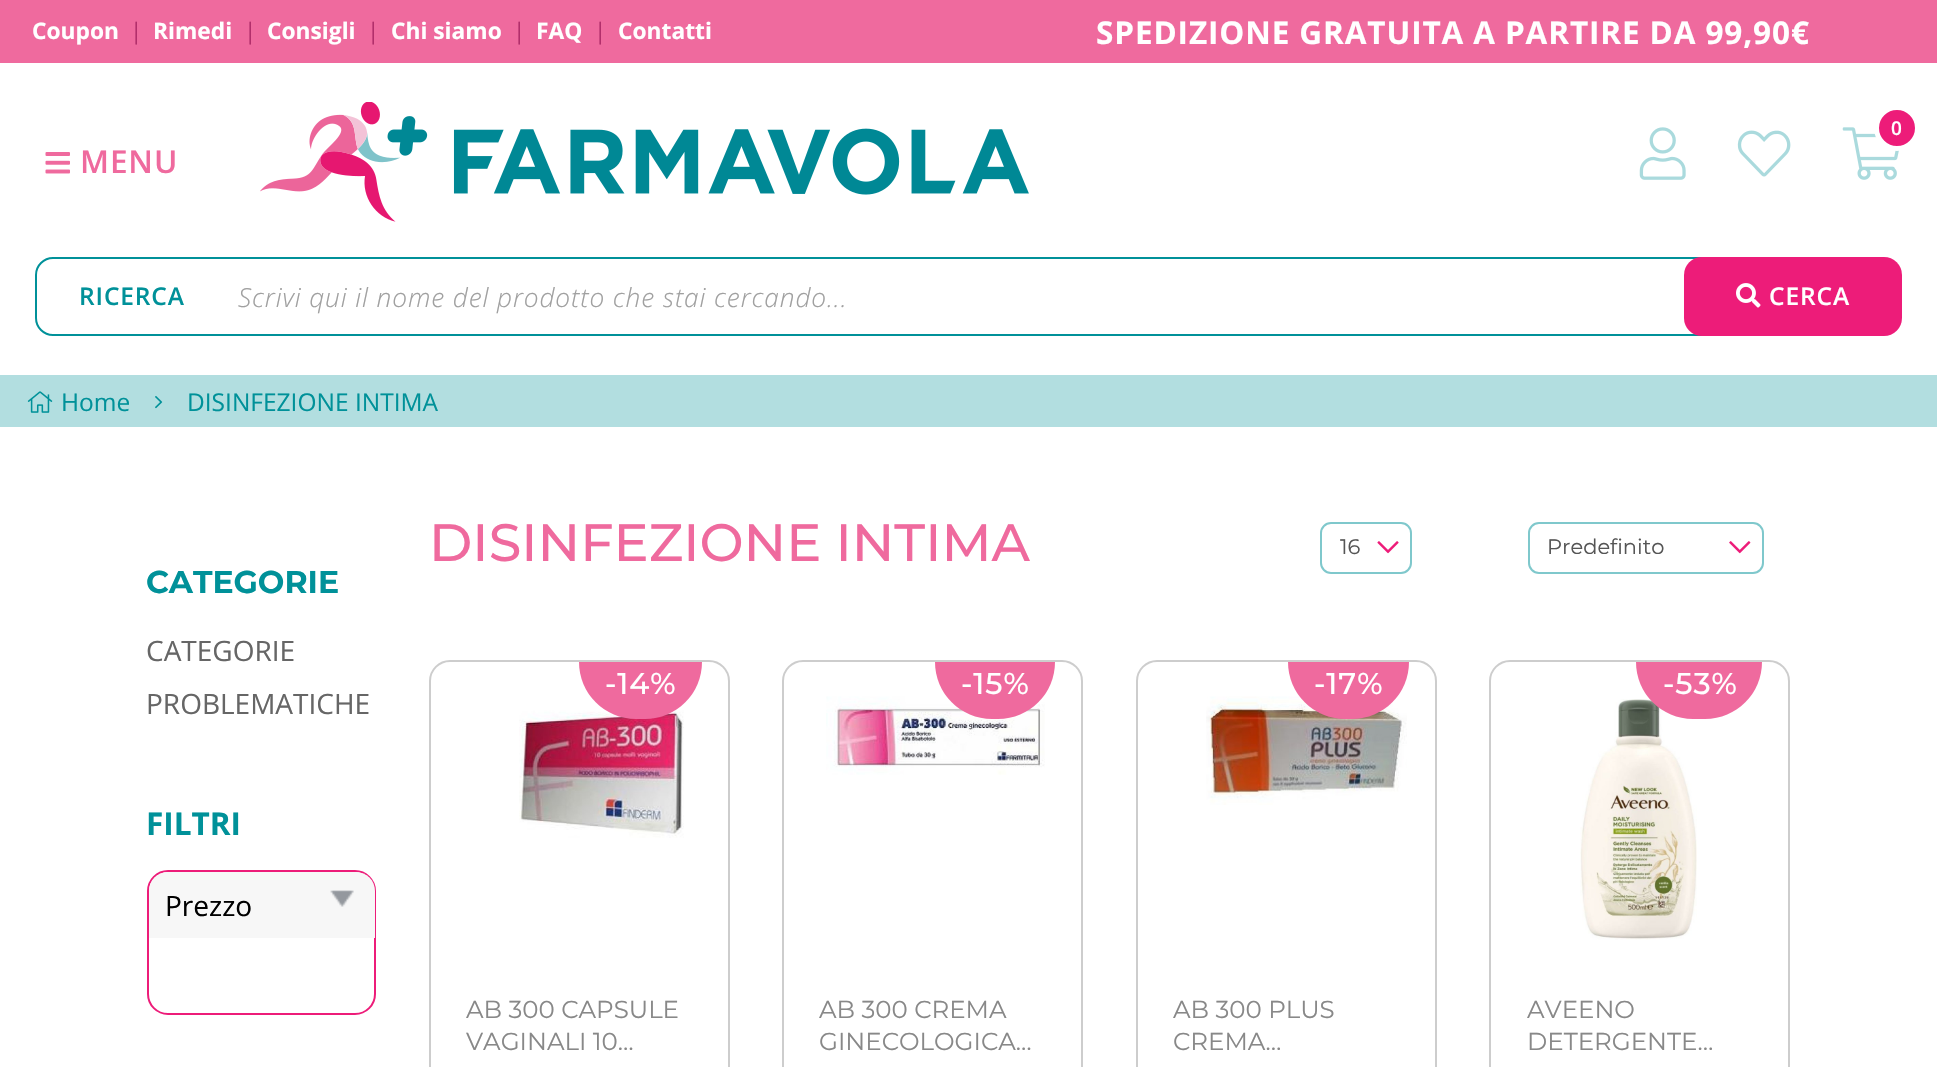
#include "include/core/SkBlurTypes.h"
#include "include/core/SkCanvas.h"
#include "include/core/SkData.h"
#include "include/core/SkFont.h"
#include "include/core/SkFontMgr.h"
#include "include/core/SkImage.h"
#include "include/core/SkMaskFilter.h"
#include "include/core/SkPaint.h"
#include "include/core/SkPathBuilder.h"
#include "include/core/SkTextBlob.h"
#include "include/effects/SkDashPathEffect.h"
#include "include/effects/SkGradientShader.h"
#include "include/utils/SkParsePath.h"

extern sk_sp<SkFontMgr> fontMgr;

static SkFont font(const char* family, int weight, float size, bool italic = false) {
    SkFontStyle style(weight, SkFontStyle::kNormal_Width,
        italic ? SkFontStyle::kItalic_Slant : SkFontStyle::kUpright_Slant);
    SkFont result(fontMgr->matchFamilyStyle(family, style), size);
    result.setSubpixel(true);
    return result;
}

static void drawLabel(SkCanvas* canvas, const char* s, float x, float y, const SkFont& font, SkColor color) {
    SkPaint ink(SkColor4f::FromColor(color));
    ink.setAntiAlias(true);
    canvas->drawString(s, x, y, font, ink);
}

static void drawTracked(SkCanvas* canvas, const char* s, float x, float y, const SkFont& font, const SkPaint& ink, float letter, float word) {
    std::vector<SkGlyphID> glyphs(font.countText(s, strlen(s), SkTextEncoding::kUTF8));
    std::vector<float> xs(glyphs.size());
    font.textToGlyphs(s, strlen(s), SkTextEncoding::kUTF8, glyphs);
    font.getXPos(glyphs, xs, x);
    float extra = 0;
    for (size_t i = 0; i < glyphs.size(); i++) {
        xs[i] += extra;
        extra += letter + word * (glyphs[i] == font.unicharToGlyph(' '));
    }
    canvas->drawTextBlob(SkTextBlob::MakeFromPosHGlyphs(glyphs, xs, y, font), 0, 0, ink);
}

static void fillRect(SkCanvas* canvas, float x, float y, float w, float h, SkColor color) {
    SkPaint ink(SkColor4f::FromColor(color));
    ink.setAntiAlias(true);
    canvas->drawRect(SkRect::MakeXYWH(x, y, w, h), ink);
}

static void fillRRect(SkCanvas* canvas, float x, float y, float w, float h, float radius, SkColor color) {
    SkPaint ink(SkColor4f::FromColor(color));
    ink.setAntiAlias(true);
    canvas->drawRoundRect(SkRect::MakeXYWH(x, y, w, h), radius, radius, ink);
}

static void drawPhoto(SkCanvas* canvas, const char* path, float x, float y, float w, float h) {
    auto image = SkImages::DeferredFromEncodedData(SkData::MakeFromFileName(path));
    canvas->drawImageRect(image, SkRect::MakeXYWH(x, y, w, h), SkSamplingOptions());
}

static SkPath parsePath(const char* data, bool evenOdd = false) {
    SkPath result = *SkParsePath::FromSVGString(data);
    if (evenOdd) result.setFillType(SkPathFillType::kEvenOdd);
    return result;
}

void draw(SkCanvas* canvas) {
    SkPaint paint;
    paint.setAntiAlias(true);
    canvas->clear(0xFFFFFFFF);
    fillRect(canvas, 0, 0, 1937, 63, 0xFFEF6A9E);
    SkFont font1 = font("Open Sans", 700, 22.75f);
    drawLabel(canvas, "Coupon", 32, 39, font1, 0xFFFFFFFF);
    SkFont font2 = font("Open Sans", 400, 22.75f);
    drawLabel(canvas, "|", 130, 39, font2, 0xFFB22F6B);
    drawLabel(canvas, "Rimedi", 153, 39, font1, 0xFFFFFFFF);
    drawLabel(canvas, "|", 244, 39, font2, 0xFFB22F6B);
    drawLabel(canvas, "Consigli", 267, 39, font1, 0xFFFFFFFF);
    drawLabel(canvas, "|", 367, 39, font2, 0xFFB22F6B);
    drawLabel(canvas, "Chi siamo", 391, 39, font1, 0xFFFFFFFF);
    drawLabel(canvas, "|", 513, 39, font2, 0xFFB22F6B);
    drawLabel(canvas, "FAQ", 536, 39, font1, 0xFFFFFFFF);
    drawLabel(canvas, "|", 594, 39, font2, 0xFFB22F6B);
    drawLabel(canvas, "Contatti", 618, 39, font1, 0xFFFFFFFF);
    SkFont font3 = font("Open Sans", 700, 31.5f);
    paint.setColor(0xFFFFFFFF);
    drawTracked(canvas, "SPEDIZIONE GRATUITA A PARTIRE DA 99,90€", 1096, 44, font3, paint, 0.88f, 0);
    drawPhoto(canvas, "assets/img1.png", 260, 102, 769, 120);
    drawPhoto(canvas, "assets/img2.png", 1639, 127, 47, 53);
    drawPhoto(canvas, "assets/img3.png", 1737, 130, 54, 47);
    drawPhoto(canvas, "assets/img4.png", 1842, 127, 57, 53);
    paint.setColor(0xFFED1C79);
    canvas->drawCircle(1897, 128, 20.5f, paint);
    paint.setStroke(true);
    paint.setStrokeWidth(5);
    paint.setColor(0xFFFFFFFF);
    canvas->drawCircle(1897, 128, 20.5f, paint);
    SkFont font4 = font("Open Sans", 600, 19);
    paint.setStroke(false);
    drawTracked(canvas, "0", 1891, 135, font4, paint, 0.88f, 0);
    drawPhoto(canvas, "assets/img5.png", 45, 152, 25, 22);
    SkFont font5 = font("Open Sans", 600, 31.5f);
    paint.setColor(0xFFEF6A9E);
    drawTracked(canvas, "MENU", 80, 173, font5, paint, 0.88f, 0);
    paint.setStroke(true);
    paint.setStrokeWidth(2);
    paint.setColor(0xFF009199);
    canvas->drawRoundRect(SkRect::MakeXYWH(36, 258, 1795, 77), 17, 17, paint);
    SkFont font6 = font("Open Sans", 600, 24.5f);
    paint.setStroke(false);
    drawTracked(canvas, "RICERCA", 79, 305, font6, paint, 0.88f, 0);
    SkFont font7 = font("Open Sans", 300, 26.25f, true);
    paint.setColor(0xFFA0A0A0);
    drawTracked(canvas, "Scrivi qui il nome del prodotto che stai cercando...", 238, 307, font7, paint, 0.88f, 0);
    fillRRect(canvas, 1684, 257, 218, 79, 18, 0xFFED1C79);
    drawPhoto(canvas, "assets/img6.png", 1736, 283, 25, 25);
    paint.setColor(0xFFFFFFFF);
    drawTracked(canvas, "CERCA", 1769, 305, font6, paint, 0.88f, 0);
    fillRect(canvas, 0, 375, 1937, 52, 0xFFB2DEE0);
    drawPhoto(canvas, "assets/img7.png", 27, 391, 26, 22);
    SkFont font8 = font("Open Sans", 400, 24.5f);
    drawLabel(canvas, "Home", 61, 411, font8, 0xFF009199);
    drawPhoto(canvas, "assets/img8.png", 155, 396, 8, 13);
    drawLabel(canvas, "DISINFEZIONE INTIMA", 187, 411, font8, 0xFF009199);
    SkFont font9 = font("Montserrat", 700, 31.5f);
    drawLabel(canvas, "CATEGORIE", 146, 593, font9, 0xFF009199);
    SkFont font10 = font("Open Sans", 400, 28);
    drawLabel(canvas, "CATEGORIE", 146, 661, font10, 0xFF666666);
    drawLabel(canvas, "PROBLEMATICHE", 146, 714, font10, 0xFF666666);
    drawLabel(canvas, "FILTRI", 146, 835, font3, 0xFF009199);
    paint.setStroke(true);
    paint.setColor(0xFFED1C79);
    canvas->drawRoundRect(SkRect::MakeXYWH(148, 871, 227, 143), 20, 20, paint);
    paint.setStroke(false);
    paint.setColor(0xFFF7F7F7);
    canvas->drawPath(parsePath("M168 872H356C366.5 872 375 880.5 375 891V938H149V891C149 880.5 157.5 872 168 872Z"), paint);
    drawLabel(canvas, "Prezzo", 165, 916, font10, 0xFF000000);
    drawPhoto(canvas, "assets/img9.png", 330, 890, 24, 17);
    SkFont font11 = font("Montserrat", 500, 52.5f);
    drawLabel(canvas, "DISINFEZIONE INTIMA", 429, 561, font11, 0xFFEF6A9E);
    paint.setStroke(true);
    paint.setColor(0xFF7FC8CC);
    canvas->drawRoundRect(SkRect::MakeXYWH(1321, 523, 90, 50), 10, 10, paint);
    SkFont font12 = font("Montserrat", 400, 21);
    drawLabel(canvas, "16", 1340, 554, font12, 0xFF555555);
    drawPhoto(canvas, "assets/img10.png", 1377, 541, 22, 13);
    canvas->drawRoundRect(SkRect::MakeXYWH(1529, 523, 234, 50), 10, 10, paint);
    drawLabel(canvas, "Predefinito", 1547, 554, font12, 0xFF555555);
    drawPhoto(canvas, "assets/img11.png", 1729, 541, 22, 13);
    paint.setColor(0xFFCDCDCD);
    canvas->drawRoundRect(SkRect::MakeXYWH(430, 661, 299, 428), 20, 20, paint);
    drawPhoto(canvas, "assets/img12.png", 519, 710, 165, 128);
    paint.setStroke(false);
    paint.setColor(0xFFEF6A9E);
    canvas->drawPath(parsePath("M579 662H702C702 693.5 676.5 719 645 719H636C604.5 719 579 693.5 579 662Z"), paint);
    SkFont font13 = font("Montserrat", 500, 30);
    paint.setColor(0xFFFFFFFF);
    drawTracked(canvas, "-14%", 605, 694, font13, paint, 0.88f, 0);
    SkFont font14 = font("Montserrat", 400, 24.5f);
    drawLabel(canvas, "AB 300 CAPSULE", 466, 1018, font14, 0xFF888888);
    drawLabel(canvas, "VAGINALI 10…", 466, 1050, font14, 0xFF888888);
    paint.setStroke(true);
    paint.setColor(0xFFCDCDCD);
    canvas->drawRoundRect(SkRect::MakeXYWH(783, 661, 299, 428), 20, 20, paint);
    drawPhoto(canvas, "assets/img13.png", 826, 696, 219, 79);
    paint.setStroke(false);
    paint.setColor(0xFFEF6A9E);
    canvas->drawPath(parsePath("M935 662H1055C1055 693.5 1029.5 719 998 719H992C960.5 719 935 693.5 935 662Z"), paint);
    paint.setColor(0xFFFFFFFF);
    drawTracked(canvas, "-15%", 961, 694, font13, paint, 0.88f, 0);
    drawLabel(canvas, "AB 300 CREMA", 819, 1018, font14, 0xFF888888);
    drawLabel(canvas, "GINECOLOGICA…", 819, 1050, font14, 0xFF888888);
    paint.setStroke(true);
    paint.setColor(0xFFCDCDCD);
    canvas->drawRoundRect(SkRect::MakeXYWH(1137, 661, 299, 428), 20, 20, paint);
    drawPhoto(canvas, "assets/img14.png", 1206, 696, 201, 109);
    paint.setStroke(false);
    paint.setColor(0xFFEF6A9E);
    canvas->drawPath(parsePath("M1288 662H1409C1409 693.5 1383.5 719 1352 719H1345C1313.5 719 1288 693.5 1288 662Z"), paint);
    paint.setColor(0xFFFFFFFF);
    drawTracked(canvas, "-17%", 1314, 694, font13, paint, 0.88f, 0);
    drawLabel(canvas, "AB 300 PLUS", 1173, 1018, font14, 0xFF888888);
    drawLabel(canvas, "CREMA…", 1173, 1050, font14, 0xFF888888);
    paint.setStroke(true);
    paint.setColor(0xFFCDCDCD);
    canvas->drawRoundRect(SkRect::MakeXYWH(1490, 661, 299, 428), 20, 20, paint);
    drawPhoto(canvas, "assets/img15.png", 1580, 699, 117, 241);
    paint.setStroke(false);
    paint.setColor(0xFFEF6A9E);
    canvas->drawPath(parsePath("M1636 662H1762C1762 693.5 1736.5 719 1705 719H1693C1661.5 719 1636 693.5 1636 662Z"), paint);
    paint.setColor(0xFFFFFFFF);
    drawTracked(canvas, "-53%", 1663, 694, font13, paint, 0.88f, 0);
    drawLabel(canvas, "AVEENO", 1527, 1018, font14, 0xFF888888);
    drawLabel(canvas, "DETERGENTE…", 1527, 1050, font14, 0xFF888888);
}
